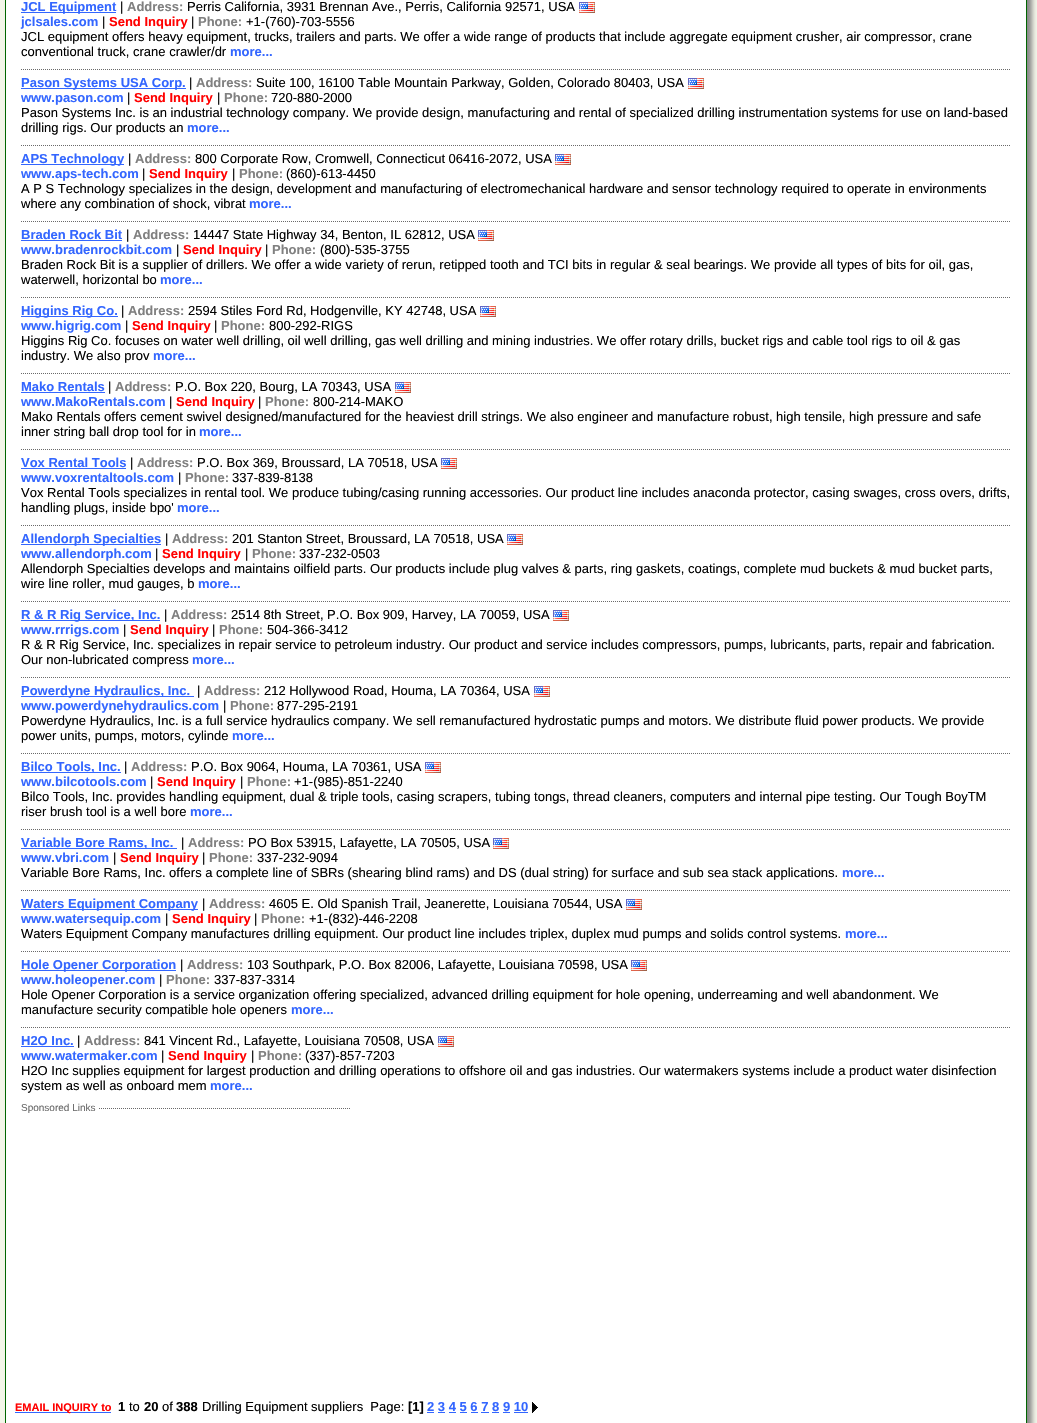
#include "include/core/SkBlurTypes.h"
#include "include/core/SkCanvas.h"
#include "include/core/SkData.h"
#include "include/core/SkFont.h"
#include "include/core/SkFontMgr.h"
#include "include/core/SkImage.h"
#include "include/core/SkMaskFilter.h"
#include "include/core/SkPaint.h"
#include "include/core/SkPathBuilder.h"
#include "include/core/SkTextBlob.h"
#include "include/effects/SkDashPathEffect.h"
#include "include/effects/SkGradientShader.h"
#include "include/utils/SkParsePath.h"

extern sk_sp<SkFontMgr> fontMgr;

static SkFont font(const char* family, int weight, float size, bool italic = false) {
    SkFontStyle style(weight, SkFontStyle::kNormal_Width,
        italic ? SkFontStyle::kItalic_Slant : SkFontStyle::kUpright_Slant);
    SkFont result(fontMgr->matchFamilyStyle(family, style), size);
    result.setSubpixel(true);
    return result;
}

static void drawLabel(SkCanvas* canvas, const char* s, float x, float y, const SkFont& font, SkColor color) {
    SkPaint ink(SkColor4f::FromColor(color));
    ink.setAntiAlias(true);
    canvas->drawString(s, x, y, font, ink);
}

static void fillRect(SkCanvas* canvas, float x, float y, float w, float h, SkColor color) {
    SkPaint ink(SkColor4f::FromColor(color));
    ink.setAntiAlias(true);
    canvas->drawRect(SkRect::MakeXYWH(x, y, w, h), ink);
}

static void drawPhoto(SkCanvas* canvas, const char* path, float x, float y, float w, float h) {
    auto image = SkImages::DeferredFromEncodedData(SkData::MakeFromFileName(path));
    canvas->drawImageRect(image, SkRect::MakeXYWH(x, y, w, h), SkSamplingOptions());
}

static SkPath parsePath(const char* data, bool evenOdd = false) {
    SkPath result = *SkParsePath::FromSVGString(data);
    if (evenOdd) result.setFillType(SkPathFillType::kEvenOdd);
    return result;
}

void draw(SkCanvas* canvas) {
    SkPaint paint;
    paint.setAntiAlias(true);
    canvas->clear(0xFFF3F6E9);
    paint.setColor(0xFF888888);
    paint.setMaskFilter(SkMaskFilter::MakeBlur(kNormal_SkBlurStyle, 2.5f));
    canvas->drawRect(SkRect::MakeXYWH(10, -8, 1022, 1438), paint);
    paint.setMaskFilter(nullptr);
    paint.setColor(0xFFFFFFFF);
    canvas->drawRect(SkRect::MakeXYWH(5.5f, -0.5f, 1021, 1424), paint);
    paint.setStroke(true);
    paint.setStrokeWidth(1);
    paint.setColor(0xFF006600);
    canvas->drawRect(SkRect::MakeXYWH(5.5f, -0.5f, 1021, 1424), paint);
    fillRect(canvas, 21, 12, 95, 1, 0xFF3366FF);
    SkFont font1 = font("Liberation Sans", 700, 13);
    drawLabel(canvas, "JCL Equipment", 21, 11, font1, 0xFF3366FF);
    SkFont font2 = font("Liberation Sans", 400, 13);
    drawLabel(canvas, "|", 120, 11, font2, 0xFF000000);
    drawLabel(canvas, "Address:", 127, 11, font1, 0xFF808080);
    drawLabel(canvas, "Perris California, 3931 Brennan Ave., Perris, California 92571, USA", 187, 11, font2, 0xFF000000);
    drawPhoto(canvas, "assets/img1.png", 579, 2, 16, 11);
    drawLabel(canvas, "jclsales.com", 21, 26, font1, 0xFF3366FF);
    drawLabel(canvas, "|", 102, 26, font2, 0xFF000000);
    drawLabel(canvas, "Send Inquiry", 109, 26, font1, 0xFFFF0000);
    drawLabel(canvas, "|", 191, 26, font2, 0xFF000000);
    drawLabel(canvas, "Phone:", 198, 26, font1, 0xFF808080);
    drawLabel(canvas, "+1-(760)-703-5556", 246, 26, font2, 0xFF000000);
    drawLabel(canvas, "JCL equipment offers heavy equipment, trucks, trailers and parts. We offer a wide range of products that include aggregate equipment crusher, air compressor, crane", 21, 41, font2, 0xFF000000);
    drawLabel(canvas, "conventional truck, crane crawler/dr", 21, 56, font2, 0xFF000000);
    drawLabel(canvas, "more...", 230, 56, font1, 0xFF3366FF);
    paint.setColor(0xFF696969);
    paint.setPathEffect(SkDashPathEffect::Make({{1, 1}}, 0));
    canvas->drawPath(parsePath("M21 69.5H1011"), paint);
    paint.setPathEffect(nullptr);
    fillRect(canvas, 21, 88, 165, 1, 0xFF3366FF);
    drawLabel(canvas, "Pason Systems USA Corp.", 21, 87, font1, 0xFF3366FF);
    drawLabel(canvas, "|", 189, 87, font2, 0xFF000000);
    drawLabel(canvas, "Address:", 196, 87, font1, 0xFF808080);
    drawLabel(canvas, "Suite 100, 16100 Table Mountain Parkway, Golden, Colorado 80403, USA", 256, 87, font2, 0xFF000000);
    drawPhoto(canvas, "assets/img1.png", 688, 78, 16, 11);
    drawLabel(canvas, "www.pason.com", 21, 102, font1, 0xFF3366FF);
    drawLabel(canvas, "|", 127, 102, font2, 0xFF000000);
    drawLabel(canvas, "Send Inquiry", 134, 102, font1, 0xFFFF0000);
    drawLabel(canvas, "|", 217, 102, font2, 0xFF000000);
    drawLabel(canvas, "Phone:", 224, 102, font1, 0xFF808080);
    drawLabel(canvas, "720-880-2000", 271, 102, font2, 0xFF000000);
    drawLabel(canvas, "Pason Systems Inc. is an industrial technology company. We provide design, manufacturing and rental of specialized drilling instrumentation systems for use on land-based", 21, 117, font2, 0xFF000000);
    drawLabel(canvas, "drilling rigs. Our products an", 21, 132, font2, 0xFF000000);
    drawLabel(canvas, "more...", 187, 132, font1, 0xFF3366FF);
    paint.setPathEffect(SkDashPathEffect::Make({{1, 1}}, 0));
    canvas->drawPath(parsePath("M21 145.5H1011"), paint);
    paint.setPathEffect(nullptr);
    fillRect(canvas, 21, 164, 103, 1, 0xFF3366FF);
    drawLabel(canvas, "APS Technology", 21, 163, font1, 0xFF3366FF);
    drawLabel(canvas, "|", 128, 163, font2, 0xFF000000);
    drawLabel(canvas, "Address:", 135, 163, font1, 0xFF808080);
    drawLabel(canvas, "800 Corporate Row, Cromwell, Connecticut 06416-2072, USA", 195, 163, font2, 0xFF000000);
    drawPhoto(canvas, "assets/img1.png", 555, 154, 16, 11);
    drawLabel(canvas, "www.aps-tech.com", 21, 178, font1, 0xFF3366FF);
    drawLabel(canvas, "|", 142, 178, font2, 0xFF000000);
    drawLabel(canvas, "Send Inquiry", 149, 178, font1, 0xFFFF0000);
    drawLabel(canvas, "|", 232, 178, font2, 0xFF000000);
    drawLabel(canvas, "Phone:", 239, 178, font1, 0xFF808080);
    drawLabel(canvas, "(860)-613-4450", 286, 178, font2, 0xFF000000);
    drawLabel(canvas, "A P S Technology specializes in the design, development and manufacturing of electromechanical hardware and sensor technology required to operate in environments", 21, 193, font2, 0xFF000000);
    drawLabel(canvas, "where any combination of shock, vibrat", 21, 208, font2, 0xFF000000);
    drawLabel(canvas, "more...", 249, 208, font1, 0xFF3366FF);
    paint.setPathEffect(SkDashPathEffect::Make({{1, 1}}, 0));
    canvas->drawPath(parsePath("M21 221.5H1011"), paint);
    paint.setPathEffect(nullptr);
    drawLabel(canvas, "Braden Rock Bit", 21, 239, font1, 0xFF3366FF);
    fillRect(canvas, 21, 240, 101, 1, 0xFF3366FF);
    drawLabel(canvas, "|", 126, 239, font2, 0xFF000000);
    drawLabel(canvas, "Address:", 133, 239, font1, 0xFF808080);
    drawLabel(canvas, "14447 State Highway 34, Benton, IL 62812, USA", 193, 239, font2, 0xFF000000);
    drawPhoto(canvas, "assets/img1.png", 478, 230, 16, 11);
    drawLabel(canvas, "www.bradenrockbit.com", 21, 254, font1, 0xFF3366FF);
    drawLabel(canvas, "|", 176, 254, font2, 0xFF000000);
    drawLabel(canvas, "Send Inquiry", 183, 254, font1, 0xFFFF0000);
    drawLabel(canvas, "|", 265, 254, font2, 0xFF000000);
    drawLabel(canvas, "Phone:", 272, 254, font1, 0xFF808080);
    drawLabel(canvas, "(800)-535-3755", 320, 254, font2, 0xFF000000);
    drawLabel(canvas, "Braden Rock Bit is a supplier of drillers. We offer a wide variety of rerun, retipped tooth and TCI bits in regular & seal bearings. We provide all types of bits for oil, gas,", 21, 269, font2, 0xFF000000);
    drawLabel(canvas, "waterwell, horizontal bo", 21, 284, font2, 0xFF000000);
    drawLabel(canvas, "more...", 160, 284, font1, 0xFF3366FF);
    paint.setPathEffect(SkDashPathEffect::Make({{1, 1}}, 0));
    canvas->drawPath(parsePath("M21 297.5H1011"), paint);
    paint.setPathEffect(nullptr);
    fillRect(canvas, 21, 316, 97, 1, 0xFF3366FF);
    drawLabel(canvas, "Higgins Rig Co.", 21, 315, font1, 0xFF3366FF);
    drawLabel(canvas, "|", 121, 315, font2, 0xFF000000);
    drawLabel(canvas, "Address:", 128, 315, font1, 0xFF808080);
    drawLabel(canvas, "2594 Stiles Ford Rd, Hodgenville, KY 42748, USA", 188, 315, font2, 0xFF000000);
    drawPhoto(canvas, "assets/img1.png", 480, 306, 16, 11);
    drawLabel(canvas, "www.higrig.com", 21, 330, font1, 0xFF3366FF);
    drawLabel(canvas, "|", 125, 330, font2, 0xFF000000);
    drawLabel(canvas, "Send Inquiry", 132, 330, font1, 0xFFFF0000);
    drawLabel(canvas, "|", 214, 330, font2, 0xFF000000);
    drawLabel(canvas, "Phone:", 221, 330, font1, 0xFF808080);
    drawLabel(canvas, "800-292-RIGS", 269, 330, font2, 0xFF000000);
    drawLabel(canvas, "Higgins Rig Co. focuses on water well drilling, oil well drilling, gas well drilling and mining industries. We offer rotary drills, bucket rigs and cable tool rigs to oil & gas", 21, 345, font2, 0xFF000000);
    drawLabel(canvas, "industry. We also prov", 21, 360, font2, 0xFF000000);
    drawLabel(canvas, "more...", 153, 360, font1, 0xFF3366FF);
    paint.setPathEffect(SkDashPathEffect::Make({{1, 1}}, 0));
    canvas->drawPath(parsePath("M21 373.5H1011"), paint);
    paint.setPathEffect(nullptr);
    drawLabel(canvas, "Mako Rentals", 21, 391, font1, 0xFF3366FF);
    fillRect(canvas, 21, 392, 84, 1, 0xFF3366FF);
    drawLabel(canvas, "|", 108, 391, font2, 0xFF000000);
    drawLabel(canvas, "Address:", 115, 391, font1, 0xFF808080);
    drawLabel(canvas, "P.O. Box 220, Bourg, LA 70343, USA", 175, 391, font2, 0xFF000000);
    drawPhoto(canvas, "assets/img1.png", 395, 382, 16, 11);
    drawLabel(canvas, "www.MakoRentals.com", 21, 406, font1, 0xFF3366FF);
    drawLabel(canvas, "|", 169, 406, font2, 0xFF000000);
    drawLabel(canvas, "Send Inquiry", 176, 406, font1, 0xFFFF0000);
    drawLabel(canvas, "|", 258, 406, font2, 0xFF000000);
    drawLabel(canvas, "Phone:", 265, 406, font1, 0xFF808080);
    drawLabel(canvas, "800-214-MAKO", 313, 406, font2, 0xFF000000);
    drawLabel(canvas, "Mako Rentals offers cement swivel designed/manufactured for the heaviest drill strings. We also engineer and manufacture robust, high tensile, high pressure and safe", 21, 421, font2, 0xFF000000);
    drawLabel(canvas, "inner string ball drop tool for in", 21, 436, font2, 0xFF000000);
    drawLabel(canvas, "more...", 199, 436, font1, 0xFF3366FF);
    paint.setPathEffect(SkDashPathEffect::Make({{1, 1}}, 0));
    canvas->drawPath(parsePath("M21 449.5H1011"), paint);
    paint.setPathEffect(nullptr);
    drawLabel(canvas, "Vox Rental Tools", 21, 467, font1, 0xFF3366FF);
    fillRect(canvas, 21, 468, 105, 1, 0xFF3366FF);
    drawLabel(canvas, "|", 130, 467, font2, 0xFF000000);
    drawLabel(canvas, "Address:", 137, 467, font1, 0xFF808080);
    drawLabel(canvas, "P.O. Box 369, Broussard, LA 70518, USA", 197, 467, font2, 0xFF000000);
    drawPhoto(canvas, "assets/img1.png", 441, 458, 16, 11);
    drawLabel(canvas, "www.voxrentaltools.com", 21, 482, font1, 0xFF3366FF);
    drawLabel(canvas, "|", 178, 482, font2, 0xFF000000);
    drawLabel(canvas, "Phone:", 185, 482, font1, 0xFF808080);
    drawLabel(canvas, "337-839-8138", 232, 482, font2, 0xFF000000);
    drawLabel(canvas, "Vox Rental Tools specializes in rental tool. We produce tubing/casing running accessories. Our product line includes anaconda protector, casing swages, cross overs, drifts,", 21, 497, font2, 0xFF000000);
    drawLabel(canvas, "handling plugs, inside bpo'", 21, 512, font2, 0xFF000000);
    drawLabel(canvas, "more...", 177, 512, font1, 0xFF3366FF);
    paint.setPathEffect(SkDashPathEffect::Make({{1, 1}}, 0));
    canvas->drawPath(parsePath("M21 525.5H1011"), paint);
    paint.setPathEffect(nullptr);
    fillRect(canvas, 21, 544, 140, 1, 0xFF3366FF);
    drawLabel(canvas, "Allendorph Specialties", 21, 543, font1, 0xFF3366FF);
    drawLabel(canvas, "|", 165, 543, font2, 0xFF000000);
    drawLabel(canvas, "Address:", 172, 543, font1, 0xFF808080);
    drawLabel(canvas, "201 Stanton Street, Broussard, LA 70518, USA", 232, 543, font2, 0xFF000000);
    drawPhoto(canvas, "assets/img1.png", 507, 534, 16, 11);
    drawLabel(canvas, "www.allendorph.com", 21, 558, font1, 0xFF3366FF);
    drawLabel(canvas, "|", 155, 558, font2, 0xFF000000);
    drawLabel(canvas, "Send Inquiry", 162, 558, font1, 0xFFFF0000);
    drawLabel(canvas, "|", 245, 558, font2, 0xFF000000);
    drawLabel(canvas, "Phone:", 252, 558, font1, 0xFF808080);
    drawLabel(canvas, "337-232-0503", 299, 558, font2, 0xFF000000);
    drawLabel(canvas, "Allendorph Specialties develops and maintains oilfield parts. Our products include plug valves & parts, ring gaskets, coatings, complete mud buckets & mud bucket parts,", 21, 573, font2, 0xFF000000);
    drawLabel(canvas, "wire line roller, mud gauges, b", 21, 588, font2, 0xFF000000);
    drawLabel(canvas, "more...", 198, 588, font1, 0xFF3366FF);
    paint.setPathEffect(SkDashPathEffect::Make({{1, 1}}, 0));
    canvas->drawPath(parsePath("M21 601.5H1011"), paint);
    paint.setPathEffect(nullptr);
    fillRect(canvas, 21, 620, 139, 1, 0xFF3366FF);
    drawLabel(canvas, "R & R Rig Service, Inc.", 21, 619, font1, 0xFF3366FF);
    drawLabel(canvas, "|", 164, 619, font2, 0xFF000000);
    drawLabel(canvas, "Address:", 171, 619, font1, 0xFF808080);
    drawLabel(canvas, "2514 8th Street, P.O. Box 909, Harvey, LA 70059, USA", 231, 619, font2, 0xFF000000);
    drawPhoto(canvas, "assets/img1.png", 553, 610, 16, 11);
    drawLabel(canvas, "www.rrrigs.com", 21, 634, font1, 0xFF3366FF);
    drawLabel(canvas, "|", 123, 634, font2, 0xFF000000);
    drawLabel(canvas, "Send Inquiry", 130, 634, font1, 0xFFFF0000);
    drawLabel(canvas, "|", 212, 634, font2, 0xFF000000);
    drawLabel(canvas, "Phone:", 219, 634, font1, 0xFF808080);
    drawLabel(canvas, "504-366-3412", 267, 634, font2, 0xFF000000);
    drawLabel(canvas, "R & R Rig Service, Inc. specializes in repair service to petroleum industry. Our product and service includes compressors, pumps, lubricants, parts, repair and fabrication.", 21, 649, font2, 0xFF000000);
    drawLabel(canvas, "Our non-lubricated compress", 21, 664, font2, 0xFF000000);
    drawLabel(canvas, "more...", 192, 664, font1, 0xFF3366FF);
    paint.setPathEffect(SkDashPathEffect::Make({{1, 1}}, 0));
    canvas->drawPath(parsePath("M21 677.5H1011"), paint);
    paint.setPathEffect(nullptr);
    fillRect(canvas, 21, 696, 173, 1, 0xFF3366FF);
    drawLabel(canvas, "Powerdyne Hydraulics, Inc.", 21, 695, font1, 0xFF3366FF);
    drawLabel(canvas, "|", 197, 695, font2, 0xFF000000);
    drawLabel(canvas, "Address:", 204, 695, font1, 0xFF808080);
    drawLabel(canvas, "212 Hollywood Road, Houma, LA 70364, USA", 264, 695, font2, 0xFF000000);
    drawPhoto(canvas, "assets/img1.png", 534, 686, 16, 11);
    drawLabel(canvas, "www.powerdynehydraulics.com", 21, 710, font1, 0xFF3366FF);
    drawLabel(canvas, "|", 223, 710, font2, 0xFF000000);
    drawLabel(canvas, "Phone:", 230, 710, font1, 0xFF808080);
    drawLabel(canvas, "877-295-2191", 277, 710, font2, 0xFF000000);
    drawLabel(canvas, "Powerdyne Hydraulics, Inc. is a full service hydraulics company. We sell remanufactured hydrostatic pumps and motors. We distribute fluid power products. We provide", 21, 725, font2, 0xFF000000);
    drawLabel(canvas, "power units, pumps, motors, cylinde", 21, 740, font2, 0xFF000000);
    drawLabel(canvas, "more...", 232, 740, font1, 0xFF3366FF);
    paint.setPathEffect(SkDashPathEffect::Make({{1, 1}}, 0));
    canvas->drawPath(parsePath("M21 753.5H1011"), paint);
    paint.setPathEffect(nullptr);
    fillRect(canvas, 21, 772, 100, 1, 0xFF3366FF);
    drawLabel(canvas, "Bilco Tools, Inc.", 21, 771, font1, 0xFF3366FF);
    drawLabel(canvas, "|", 124, 771, font2, 0xFF000000);
    drawLabel(canvas, "Address:", 131, 771, font1, 0xFF808080);
    drawLabel(canvas, "P.O. Box 9064, Houma, LA 70361, USA", 191, 771, font2, 0xFF000000);
    drawPhoto(canvas, "assets/img1.png", 425, 762, 16, 11);
    drawLabel(canvas, "www.bilcotools.com", 21, 786, font1, 0xFF3366FF);
    drawLabel(canvas, "|", 150, 786, font2, 0xFF000000);
    drawLabel(canvas, "Send Inquiry", 157, 786, font1, 0xFFFF0000);
    drawLabel(canvas, "|", 240, 786, font2, 0xFF000000);
    drawLabel(canvas, "Phone:", 247, 786, font1, 0xFF808080);
    drawLabel(canvas, "+1-(985)-851-2240", 294, 786, font2, 0xFF000000);
    drawLabel(canvas, "Bilco Tools, Inc. provides handling equipment, dual & triple tools, casing scrapers, tubing tongs, thread cleaners, computers and internal pipe testing. Our Tough BoyTM", 21, 801, font2, 0xFF000000);
    drawLabel(canvas, "riser brush tool is a well bore", 21, 816, font2, 0xFF000000);
    drawLabel(canvas, "more...", 190, 816, font1, 0xFF3366FF);
    paint.setPathEffect(SkDashPathEffect::Make({{1, 1}}, 0));
    canvas->drawPath(parsePath("M21 829.5H1011"), paint);
    paint.setPathEffect(nullptr);
    fillRect(canvas, 21, 848, 156, 1, 0xFF3366FF);
    drawLabel(canvas, "Variable Bore Rams, Inc.", 21, 847, font1, 0xFF3366FF);
    drawLabel(canvas, "|", 181, 847, font2, 0xFF000000);
    drawLabel(canvas, "Address:", 188, 847, font1, 0xFF808080);
    drawLabel(canvas, "PO Box 53915, Lafayette, LA 70505, USA", 248, 847, font2, 0xFF000000);
    drawPhoto(canvas, "assets/img1.png", 493, 838, 16, 11);
    drawLabel(canvas, "www.vbri.com", 21, 862, font1, 0xFF3366FF);
    drawLabel(canvas, "|", 113, 862, font2, 0xFF000000);
    drawLabel(canvas, "Send Inquiry", 120, 862, font1, 0xFFFF0000);
    drawLabel(canvas, "|", 202, 862, font2, 0xFF000000);
    drawLabel(canvas, "Phone:", 209, 862, font1, 0xFF808080);
    drawLabel(canvas, "337-232-9094", 257, 862, font2, 0xFF000000);
    drawLabel(canvas, "Variable Bore Rams, Inc. offers a complete line of SBRs (shearing blind rams) and DS (dual string) for surface and sub sea stack applications.", 21, 877, font2, 0xFF000000);
    drawLabel(canvas, "more...", 842, 877, font1, 0xFF3366FF);
    paint.setPathEffect(SkDashPathEffect::Make({{1, 1}}, 0));
    canvas->drawPath(parsePath("M21 890.5H1011"), paint);
    paint.setPathEffect(nullptr);
    fillRect(canvas, 21, 909, 177, 1, 0xFF3366FF);
    drawLabel(canvas, "Waters Equipment Company", 21, 908, font1, 0xFF3366FF);
    drawLabel(canvas, "|", 202, 908, font2, 0xFF000000);
    drawLabel(canvas, "Address:", 209, 908, font1, 0xFF808080);
    drawLabel(canvas, "4605 E. Old Spanish Trail, Jeanerette, Louisiana 70544, USA", 269, 908, font2, 0xFF000000);
    drawPhoto(canvas, "assets/img1.png", 626, 899, 16, 11);
    drawLabel(canvas, "www.watersequip.com", 21, 923, font1, 0xFF3366FF);
    drawLabel(canvas, "|", 165, 923, font2, 0xFF000000);
    drawLabel(canvas, "Send Inquiry", 172, 923, font1, 0xFFFF0000);
    drawLabel(canvas, "|", 254, 923, font2, 0xFF000000);
    drawLabel(canvas, "Phone:", 261, 923, font1, 0xFF808080);
    drawLabel(canvas, "+1-(832)-446-2208", 309, 923, font2, 0xFF000000);
    drawLabel(canvas, "Waters Equipment Company manufactures drilling equipment. Our product line includes triplex, duplex mud pumps and solids control systems.", 21, 938, font2, 0xFF000000);
    drawLabel(canvas, "more...", 845, 938, font1, 0xFF3366FF);
    paint.setPathEffect(SkDashPathEffect::Make({{1, 1}}, 0));
    canvas->drawPath(parsePath("M21 951.5H1011"), paint);
    paint.setPathEffect(nullptr);
    fillRect(canvas, 21, 970, 155, 1, 0xFF3366FF);
    drawLabel(canvas, "Hole Opener Corporation", 21, 969, font1, 0xFF3366FF);
    drawLabel(canvas, "|", 180, 969, font2, 0xFF000000);
    drawLabel(canvas, "Address:", 187, 969, font1, 0xFF808080);
    drawLabel(canvas, "103 Southpark, P.O. Box 82006, Lafayette, Louisiana 70598, USA", 247, 969, font2, 0xFF000000);
    drawPhoto(canvas, "assets/img1.png", 631, 960, 16, 11);
    drawLabel(canvas, "www.holeopener.com", 21, 984, font1, 0xFF3366FF);
    drawLabel(canvas, "|", 159, 984, font2, 0xFF000000);
    drawLabel(canvas, "Phone:", 166, 984, font1, 0xFF808080);
    drawLabel(canvas, "337-837-3314", 214, 984, font2, 0xFF000000);
    drawLabel(canvas, "Hole Opener Corporation is a service organization offering specialized, advanced drilling equipment for hole opening, underreaming and well abandonment. We", 21, 999, font2, 0xFF000000);
    drawLabel(canvas, "manufacture security compatible hole openers", 21, 1014, font2, 0xFF000000);
    drawLabel(canvas, "more...", 291, 1014, font1, 0xFF3366FF);
    paint.setPathEffect(SkDashPathEffect::Make({{1, 1}}, 0));
    canvas->drawPath(parsePath("M21 1027.5H1011"), paint);
    paint.setPathEffect(nullptr);
    drawLabel(canvas, "H2O Inc.", 21, 1045, font1, 0xFF3366FF);
    fillRect(canvas, 21, 1046, 53, 1, 0xFF3366FF);
    drawLabel(canvas, "|", 77, 1045, font2, 0xFF000000);
    drawLabel(canvas, "Address:", 84, 1045, font1, 0xFF808080);
    drawLabel(canvas, "841 Vincent Rd., Lafayette, Louisiana 70508, USA", 144, 1045, font2, 0xFF000000);
    drawPhoto(canvas, "assets/img1.png", 438, 1036, 16, 11);
    drawLabel(canvas, "www.watermaker.com", 21, 1060, font1, 0xFF3366FF);
    drawLabel(canvas, "|", 161, 1060, font2, 0xFF000000);
    drawLabel(canvas, "Send Inquiry", 168, 1060, font1, 0xFFFF0000);
    drawLabel(canvas, "|", 251, 1060, font2, 0xFF000000);
    drawLabel(canvas, "Phone:", 258, 1060, font1, 0xFF808080);
    drawLabel(canvas, "(337)-857-7203", 305, 1060, font2, 0xFF000000);
    drawLabel(canvas, "H2O Inc supplies equipment for largest production and drilling operations to offshore oil and gas industries. Our watermakers systems include a product water disinfection", 21, 1075, font2, 0xFF000000);
    drawLabel(canvas, "system as well as onboard mem", 21, 1090, font2, 0xFF000000);
    drawLabel(canvas, "more...", 210, 1090, font1, 0xFF3366FF);
    paint.setPathEffect(SkDashPathEffect::Make({{1, 1}}, 0));
    canvas->drawPath(parsePath("M21 1108.5H351"), paint);
    paint.setPathEffect(nullptr);
    fillRect(canvas, 21, 1108, 77, 1, 0xFFFFFFFF);
    SkFont font3 = font("Liberation Sans", 400, 10);
    drawLabel(canvas, "Sponsored Links", 21, 1111, font3, 0xFF696969);
    fillRect(canvas, 15, 1412, 96, 1, 0xFF3366FF);
    SkFont font4 = font("Liberation Sans", 700, 11);
    drawLabel(canvas, "EMAIL INQUIRY to", 15, 1411, font4, 0xFFFF0000);
    drawLabel(canvas, "1", 118, 1411, font1, 0xFF000000);
    drawLabel(canvas, "to", 129, 1411, font2, 0xFF000000);
    drawLabel(canvas, "20", 144, 1411, font1, 0xFF000000);
    drawLabel(canvas, "of", 162, 1411, font2, 0xFF000000);
    drawLabel(canvas, "388", 176, 1411, font1, 0xFF000000);
    drawLabel(canvas, "Drilling Equipment suppliers  Page:", 202, 1411, font2, 0xFF000000);
    drawLabel(canvas, "[1]", 408, 1411, font1, 0xFF000000);
    drawLabel(canvas, "2 3 4 5 6 7 8 9 10", 427, 1411, font1, 0xFF3366FF);
    fillRect(canvas, 427, 1412, 7, 1, 0xFF3366FF);
    drawPhoto(canvas, "assets/img2.png", 532, 1402, 6, 11);
    fillRect(canvas, 438, 1412, 7, 1, 0xFF3366FF);
    fillRect(canvas, 449, 1412, 7, 1, 0xFF3366FF);
    fillRect(canvas, 460, 1412, 7, 1, 0xFF3366FF);
    fillRect(canvas, 471, 1412, 7, 1, 0xFF3366FF);
    fillRect(canvas, 481, 1412, 8, 1, 0xFF3366FF);
    fillRect(canvas, 492, 1412, 7, 1, 0xFF3366FF);
    fillRect(canvas, 503, 1412, 7, 1, 0xFF3366FF);
    fillRect(canvas, 514, 1412, 14, 1, 0xFF3366FF);
}
